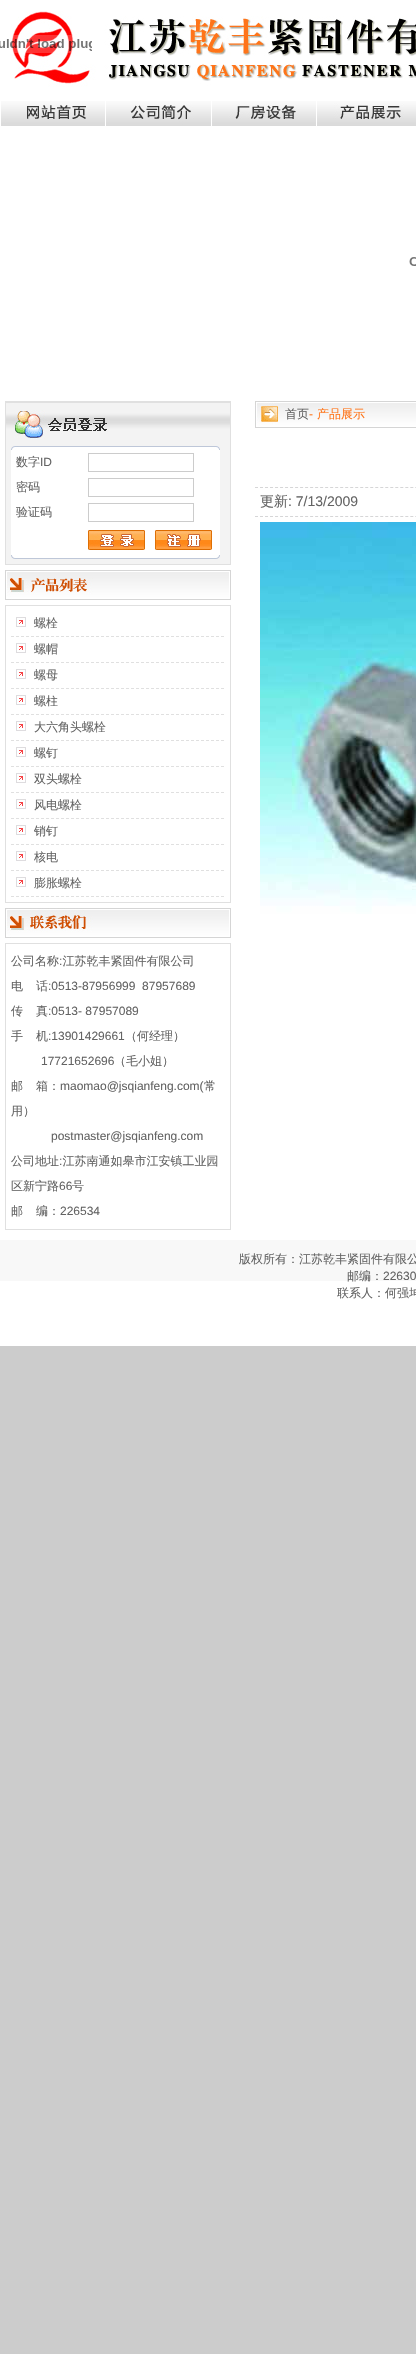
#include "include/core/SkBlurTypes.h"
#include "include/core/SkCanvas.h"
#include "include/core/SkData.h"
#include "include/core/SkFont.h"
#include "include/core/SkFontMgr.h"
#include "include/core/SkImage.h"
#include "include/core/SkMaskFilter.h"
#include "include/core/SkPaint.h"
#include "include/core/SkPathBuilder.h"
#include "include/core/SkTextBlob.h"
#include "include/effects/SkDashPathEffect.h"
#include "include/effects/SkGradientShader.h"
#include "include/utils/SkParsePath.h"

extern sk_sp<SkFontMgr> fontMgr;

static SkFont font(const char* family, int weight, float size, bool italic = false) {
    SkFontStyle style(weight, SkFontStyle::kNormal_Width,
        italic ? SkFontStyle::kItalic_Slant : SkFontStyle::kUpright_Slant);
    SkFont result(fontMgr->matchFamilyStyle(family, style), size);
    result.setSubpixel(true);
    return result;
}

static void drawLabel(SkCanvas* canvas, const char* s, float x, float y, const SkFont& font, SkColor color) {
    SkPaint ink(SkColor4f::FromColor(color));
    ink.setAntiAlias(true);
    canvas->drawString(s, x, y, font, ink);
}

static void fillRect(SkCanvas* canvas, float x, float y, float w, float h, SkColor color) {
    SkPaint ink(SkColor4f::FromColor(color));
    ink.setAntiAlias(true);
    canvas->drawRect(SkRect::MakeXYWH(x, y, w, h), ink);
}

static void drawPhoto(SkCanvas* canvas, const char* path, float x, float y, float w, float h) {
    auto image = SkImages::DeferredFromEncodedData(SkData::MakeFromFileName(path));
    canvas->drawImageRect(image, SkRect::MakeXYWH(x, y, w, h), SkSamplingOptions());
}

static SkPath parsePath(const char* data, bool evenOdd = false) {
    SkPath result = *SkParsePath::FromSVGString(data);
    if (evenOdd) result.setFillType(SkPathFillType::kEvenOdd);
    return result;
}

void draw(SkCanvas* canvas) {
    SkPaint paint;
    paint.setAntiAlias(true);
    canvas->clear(0xFFCCCCCC);
    fillRect(canvas, 0, 0, 416, 1346, 0xFFFFFFFF);
    drawPhoto(canvas, "assets/img1.png", 10, 11, 406, 76);
    drawPhoto(canvas, "assets/img2.png", 0, 35, 92, 18);
    drawPhoto(canvas, "assets/img3.png", 1, 101, 104, 25);
    drawPhoto(canvas, "assets/img4.png", 106, 101, 105, 25);
    drawPhoto(canvas, "assets/img5.png", 212, 101, 104, 25);
    drawPhoto(canvas, "assets/img6.png", 317, 101, 99, 25);
    drawPhoto(canvas, "assets/img7.png", 409, 257, 7, 9);
    fillRect(canvas, 6, 439, 224, 125, 0xFFF3F3F3);
    paint.setStroke(true);
    paint.setStrokeWidth(1);
    paint.setColor(0xFFE0E0E0);
    canvas->drawRect(SkRect::MakeXYWH(5.5f, 401.5f, 225, 163), paint);
    drawPhoto(canvas, "assets/img8.png", 6, 402, 224, 37);
    drawPhoto(canvas, "assets/img9.png", 11, 446, 209, 4);
    fillRect(canvas, 11, 450, 209, 105, 0xFFFFFFFF);
    SkFont font1 = font("WenQuanYi Zen Hei", 500, 12);
    drawLabel(canvas, "数字", 16, 466, font1, 0xFF636363);
    SkFont font2 = font("Liberation Sans", 400, 12);
    drawLabel(canvas, "ID", 40, 466, font2, 0xFF636363);
    paint.setColor(0xFFCCCCCC);
    canvas->drawRect(SkRect::MakeXYWH(88.5f, 453.5f, 105, 18), paint);
    drawLabel(canvas, "密码", 16, 491, font1, 0xFF636363);
    canvas->drawRect(SkRect::MakeXYWH(88.5f, 478.5f, 105, 18), paint);
    drawLabel(canvas, "验证码", 16, 516, font1, 0xFF636363);
    canvas->drawRect(SkRect::MakeXYWH(88.5f, 503.5f, 105, 18), paint);
    drawPhoto(canvas, "assets/img10.png", 88, 530, 57, 20);
    drawPhoto(canvas, "assets/img11.png", 155, 530, 57, 20);
    drawPhoto(canvas, "assets/img12.png", 11, 555, 209, 4);
    drawPhoto(canvas, "assets/img13.png", 5, 570, 226, 30);
    paint.setColor(0xFFE0E0E0);
    canvas->drawRect(SkRect::MakeXYWH(5.5f, 605.5f, 225, 297), paint);
    paint.setPathEffect(SkDashPathEffect::Make({{3, 2}}, 0));
    canvas->drawPath(parsePath("M11 636.5H224"), paint);
    paint.setPathEffect(nullptr);
    drawPhoto(canvas, "assets/img14.png", 16, 617, 10, 10);
    drawLabel(canvas, "螺栓", 34, 627, font1, 0xFF636363);
    paint.setPathEffect(SkDashPathEffect::Make({{3, 2}}, 0));
    canvas->drawPath(parsePath("M11 662.5H224"), paint);
    paint.setPathEffect(nullptr);
    drawPhoto(canvas, "assets/img14.png", 16, 643, 10, 10);
    drawLabel(canvas, "螺帽", 34, 653, font1, 0xFF636363);
    paint.setPathEffect(SkDashPathEffect::Make({{3, 2}}, 0));
    canvas->drawPath(parsePath("M11 688.5H224"), paint);
    paint.setPathEffect(nullptr);
    drawPhoto(canvas, "assets/img14.png", 16, 669, 10, 10);
    drawLabel(canvas, "螺母", 34, 679, font1, 0xFF636363);
    paint.setPathEffect(SkDashPathEffect::Make({{3, 2}}, 0));
    canvas->drawPath(parsePath("M11 714.5H224"), paint);
    paint.setPathEffect(nullptr);
    drawPhoto(canvas, "assets/img14.png", 16, 695, 10, 10);
    drawLabel(canvas, "螺柱", 34, 705, font1, 0xFF636363);
    paint.setPathEffect(SkDashPathEffect::Make({{3, 2}}, 0));
    canvas->drawPath(parsePath("M11 740.5H224"), paint);
    paint.setPathEffect(nullptr);
    drawPhoto(canvas, "assets/img14.png", 16, 721, 10, 10);
    drawLabel(canvas, "大六角头螺栓", 34, 731, font1, 0xFF636363);
    paint.setPathEffect(SkDashPathEffect::Make({{3, 2}}, 0));
    canvas->drawPath(parsePath("M11 766.5H224"), paint);
    paint.setPathEffect(nullptr);
    drawPhoto(canvas, "assets/img14.png", 16, 747, 10, 10);
    drawLabel(canvas, "螺钉", 34, 757, font1, 0xFF636363);
    paint.setPathEffect(SkDashPathEffect::Make({{3, 2}}, 0));
    canvas->drawPath(parsePath("M11 792.5H224"), paint);
    paint.setPathEffect(nullptr);
    drawPhoto(canvas, "assets/img14.png", 16, 773, 10, 10);
    drawLabel(canvas, "双头螺栓", 34, 783, font1, 0xFF636363);
    paint.setPathEffect(SkDashPathEffect::Make({{3, 2}}, 0));
    canvas->drawPath(parsePath("M11 818.5H224"), paint);
    paint.setPathEffect(nullptr);
    drawPhoto(canvas, "assets/img14.png", 16, 799, 10, 10);
    drawLabel(canvas, "风电螺栓", 34, 809, font1, 0xFF636363);
    paint.setPathEffect(SkDashPathEffect::Make({{3, 2}}, 0));
    canvas->drawPath(parsePath("M11 844.5H224"), paint);
    paint.setPathEffect(nullptr);
    drawPhoto(canvas, "assets/img14.png", 16, 825, 10, 10);
    drawLabel(canvas, "销钉", 34, 835, font1, 0xFF636363);
    paint.setPathEffect(SkDashPathEffect::Make({{3, 2}}, 0));
    canvas->drawPath(parsePath("M11 870.5H224"), paint);
    paint.setPathEffect(nullptr);
    drawPhoto(canvas, "assets/img14.png", 16, 851, 10, 10);
    drawLabel(canvas, "核电", 34, 861, font1, 0xFF636363);
    paint.setPathEffect(SkDashPathEffect::Make({{3, 2}}, 0));
    canvas->drawPath(parsePath("M11 896.5H224"), paint);
    paint.setPathEffect(nullptr);
    drawPhoto(canvas, "assets/img14.png", 16, 877, 10, 10);
    drawLabel(canvas, "膨胀螺栓", 34, 887, font1, 0xFF636363);
    drawPhoto(canvas, "assets/img15.png", 5, 908, 226, 30);
    canvas->drawRect(SkRect::MakeXYWH(5.5f, 943.5f, 225, 286), paint);
    drawLabel(canvas, "公司名称 江苏乾丰紧固件有限公司", 11, 965, font1, 0xFF636363);
    drawLabel(canvas, ":", 59, 965, font2, 0xFF636363);
    drawLabel(canvas, "电", 11, 990, font1, 0xFF636363);
    drawLabel(canvas, "话", 36, 990, font1, 0xFF636363);
    drawLabel(canvas, ":0513-87956999  87957689", 48, 990, font2, 0xFF636363);
    drawLabel(canvas, "传", 11, 1015, font1, 0xFF636363);
    drawLabel(canvas, "真", 36, 1015, font1, 0xFF636363);
    drawLabel(canvas, ":0513- 87957089", 48, 1015, font2, 0xFF636363);
    drawLabel(canvas, "手", 11, 1040, font1, 0xFF636363);
    drawLabel(canvas, "机", 36, 1040, font1, 0xFF636363);
    drawLabel(canvas, ":13901429661", 48, 1040, font2, 0xFF636363);
    drawLabel(canvas, "（何经理）", 125, 1040, font1, 0xFF636363);
    drawLabel(canvas, "17721652696", 41, 1065, font2, 0xFF636363);
    drawLabel(canvas, "（毛小姐）", 114, 1065, font1, 0xFF636363);
    drawLabel(canvas, "邮", 11, 1090, font1, 0xFF636363);
    drawLabel(canvas, "箱：", 36, 1090, font1, 0xFF636363);
    drawLabel(canvas, "maomao@jsqianfeng.com(", 60, 1090, font2, 0xFF636363);
    drawLabel(canvas, "常", 204, 1090, font1, 0xFF636363);
    drawLabel(canvas, "用）", 11, 1115, font1, 0xFF636363);
    drawLabel(canvas, "postmaster@jsqianfeng.com", 51, 1140, font2, 0xFF636363);
    drawLabel(canvas, "公司地址 江苏南通如皋市江安镇工业园", 11, 1165, font1, 0xFF636363);
    drawLabel(canvas, ":", 59, 1165, font2, 0xFF636363);
    drawLabel(canvas, "区新宁路", 11, 1190, font1, 0xFF636363);
    drawLabel(canvas, "66", 59, 1190, font2, 0xFF636363);
    drawLabel(canvas, "号", 72, 1190, font1, 0xFF636363);
    drawLabel(canvas, "邮", 11, 1215, font1, 0xFF636363);
    drawLabel(canvas, "编：", 36, 1215, font1, 0xFF636363);
    drawLabel(canvas, "226534", 60, 1215, font2, 0xFF636363);
    drawPhoto(canvas, "assets/img16.png", 255, 401, 161, 27);
    drawLabel(canvas, "首页", 285, 418, font1, 0xFF636363);
    drawLabel(canvas, "-", 309, 418, font2, 0xFFFF7418);
    drawLabel(canvas, "产品展示", 317, 418, font1, 0xFFFF7418);
    paint.setColor(0xFFD6D6D7);
    paint.setPathEffect(SkDashPathEffect::Make({{3, 2.01f}}, 0));
    canvas->drawPath(parsePath("M255 487.5H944"), paint);
    paint.setPathEffect(nullptr);
    paint.setPathEffect(SkDashPathEffect::Make({{3, 2.01f}}, 0));
    canvas->drawPath(parsePath("M255 516.5H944"), paint);
    paint.setPathEffect(nullptr);
    SkFont font3 = font("WenQuanYi Zen Hei", 500, 14);
    drawLabel(canvas, "更新", 260, 506, font3, 0xFF636363);
    SkFont font4 = font("Liberation Sans", 400, 14);
    drawLabel(canvas, ": 7/13/2009", 288, 506, font4, 0xFF636363);
    drawPhoto(canvas, "assets/img17.png", 260, 522, 156, 392);
    fillRect(canvas, 0, 1240, 416, 41, 0xFFF8F8F8);
    drawLabel(canvas, "版权所有：江苏乾丰紧固件有限公", 239, 1263, font1, 0xFF636363);
    drawLabel(canvas, "邮编：", 347, 1280, font1, 0xFF636363);
    drawLabel(canvas, "22630", 383, 1280, font2, 0xFF636363);
    drawLabel(canvas, "联系人：何强坤", 337, 1297, font1, 0xFF636363);
}
